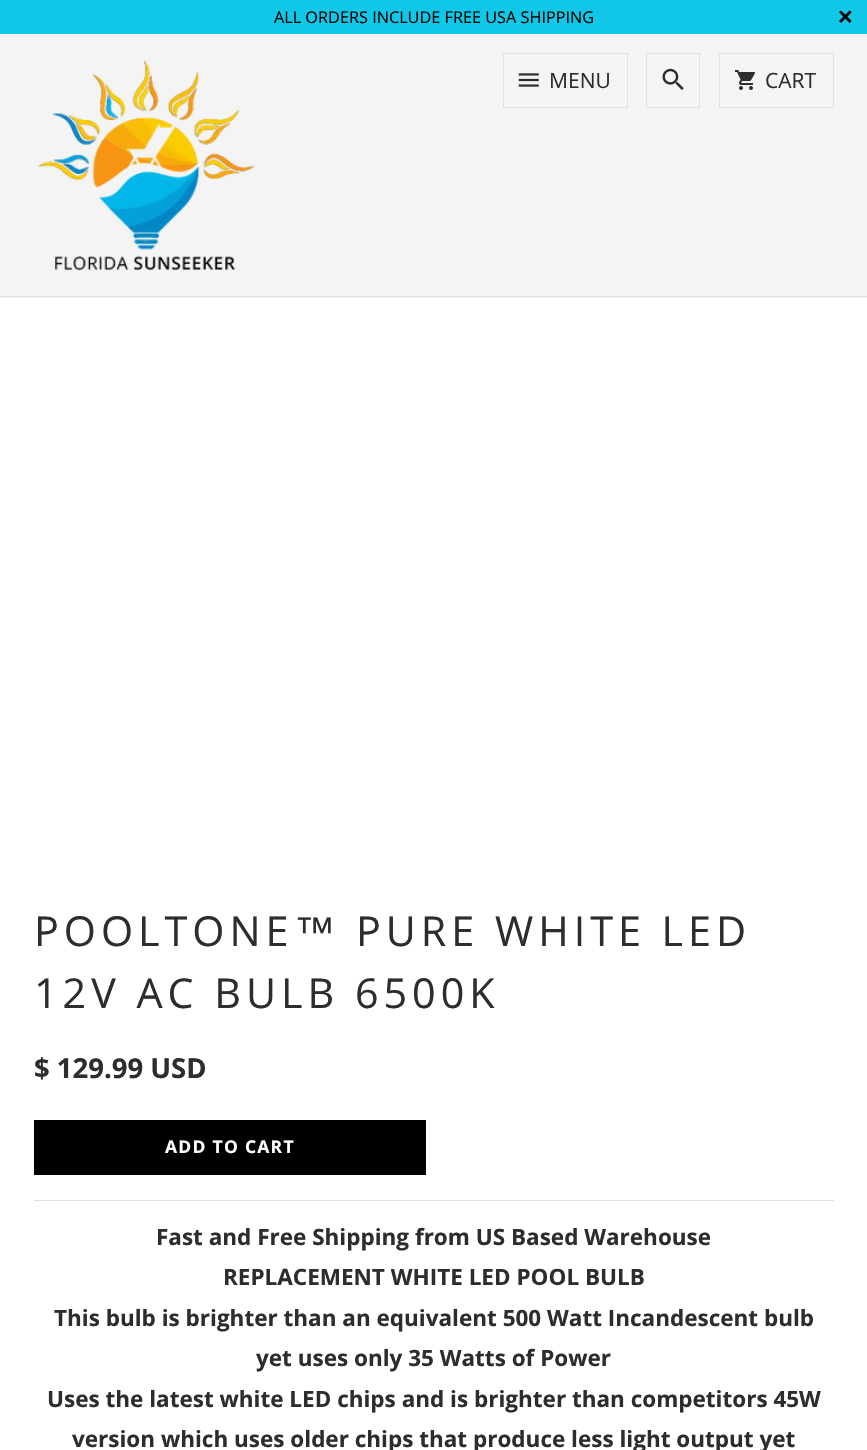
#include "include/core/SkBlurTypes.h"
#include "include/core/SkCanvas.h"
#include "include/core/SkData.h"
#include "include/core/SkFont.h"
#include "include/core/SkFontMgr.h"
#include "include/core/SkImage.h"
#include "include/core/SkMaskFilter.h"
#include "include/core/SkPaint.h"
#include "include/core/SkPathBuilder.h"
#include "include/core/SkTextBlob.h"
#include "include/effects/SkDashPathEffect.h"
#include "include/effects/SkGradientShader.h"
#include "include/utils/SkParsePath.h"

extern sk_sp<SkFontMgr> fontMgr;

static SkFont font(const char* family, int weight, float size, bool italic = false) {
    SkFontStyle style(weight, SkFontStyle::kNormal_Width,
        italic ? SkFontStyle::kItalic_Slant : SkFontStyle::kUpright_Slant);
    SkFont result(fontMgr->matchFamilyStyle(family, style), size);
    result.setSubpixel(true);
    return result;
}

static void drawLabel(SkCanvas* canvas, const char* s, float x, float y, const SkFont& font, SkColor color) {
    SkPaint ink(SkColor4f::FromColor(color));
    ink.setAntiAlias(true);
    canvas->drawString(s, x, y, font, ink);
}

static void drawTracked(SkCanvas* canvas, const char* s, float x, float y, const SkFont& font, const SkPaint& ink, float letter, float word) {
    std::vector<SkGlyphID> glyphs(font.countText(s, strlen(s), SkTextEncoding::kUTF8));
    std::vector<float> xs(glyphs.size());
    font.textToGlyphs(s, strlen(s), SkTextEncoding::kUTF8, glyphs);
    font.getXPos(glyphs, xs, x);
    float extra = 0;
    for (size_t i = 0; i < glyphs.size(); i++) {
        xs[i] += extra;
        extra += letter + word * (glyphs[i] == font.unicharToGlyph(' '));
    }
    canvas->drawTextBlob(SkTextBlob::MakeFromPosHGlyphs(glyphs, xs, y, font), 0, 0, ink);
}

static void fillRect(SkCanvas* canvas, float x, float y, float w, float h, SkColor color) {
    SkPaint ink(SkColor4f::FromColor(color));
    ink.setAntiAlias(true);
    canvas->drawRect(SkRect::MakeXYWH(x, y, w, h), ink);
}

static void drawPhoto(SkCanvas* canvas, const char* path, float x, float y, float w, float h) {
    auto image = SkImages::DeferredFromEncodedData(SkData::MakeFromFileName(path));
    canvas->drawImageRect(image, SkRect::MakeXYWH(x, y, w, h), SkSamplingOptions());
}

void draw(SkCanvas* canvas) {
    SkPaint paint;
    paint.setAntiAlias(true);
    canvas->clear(0xFFFFFFFF);
    fillRect(canvas, 0, 0, 867, 34, 0xFF11C7E7);
    SkFont font1 = font("Open Sans", 400, 16.25f);
    drawLabel(canvas, "ALL ORDERS INCLUDE FREE USA SHIPPING", 274, 23, font1, 0xFF000000);
    SkFont font2 = font("Liberation Sans", 700, 25);
    paint.setColor(0xFF000000);
    drawTracked(canvas, "×", 838, 25, font2, paint, 1.25f, 0);
    fillRect(canvas, 0, 34, 867, 264, 0xFFF4F4F4);
    fillRect(canvas, 0, 296, 867, 1, 0xFFE0E0E0);
    drawPhoto(canvas, "assets/img1.png", 38, 60, 217, 211);
    paint.setStroke(true);
    paint.setStrokeWidth(1);
    paint.setColor(0xFFE0E0E0);
    canvas->drawRect(SkRect::MakeXYWH(503.5f, 53.5f, 124, 54), paint);
    drawPhoto(canvas, "assets/img2.png", 518, 73, 21, 14);
    SkFont font3 = font("Open Sans", 400, 21);
    drawLabel(canvas, "MENU", 549, 88, font3, 0xFF2E2D2C);
    canvas->drawRect(SkRect::MakeXYWH(646.5f, 53.5f, 53, 54), paint);
    drawPhoto(canvas, "assets/img3.png", 662, 68, 22, 22);
    canvas->drawRect(SkRect::MakeXYWH(719.5f, 53.5f, 114, 54), paint);
    drawPhoto(canvas, "assets/img4.png", 735, 70, 20, 20);
    drawLabel(canvas, "CART", 765, 88, font3, 0xFF2E2D2C);
    SkFont font4 = font("Open Sans", 400, 41.25f);
    paint.setStroke(false);
    paint.setColor(0xFF2E2D2C);
    drawTracked(canvas, "POOLTONE", 34, 946, font4, paint, 5, 0);
    SkFont font5 = font("Liberation Sans", 400, 41.25f);
    drawTracked(canvas, "™", 294, 946, font5, paint, 5, 0);
    drawTracked(canvas, "PURE WHITE LED", 356, 946, font4, paint, 5, 0);
    drawTracked(canvas, "12V AC BULB 6500K", 34, 1008, font4, paint, 5, 0);
    SkFont font6 = font("Open Sans", 700, 27.5f);
    drawLabel(canvas, "$ 129.99 USD", 34, 1078, font6, 0xFF2E2D2C);
    fillRect(canvas, 34, 1120, 392, 55, 0xFF000000);
    SkFont font7 = font("Open Sans", 700, 17.5f);
    paint.setColor(0xFFFFFFFF);
    drawTracked(canvas, "ADD TO CART", 165, 1153, font7, paint, 1.25f, 0);
    fillRect(canvas, 34, 1200, 800, 1, 0xFFE0E0E0);
    SkFont font8 = font("Open Sans", 700, 22.5f);
    drawLabel(canvas, "Fast and Free Shipping from US Based Warehouse", 156, 1245, font8, 0xFF2E2D2C);
    drawLabel(canvas, "REPLACEMENT WHITE LED POOL BULB", 223, 1285, font8, 0xFF2E2D2C);
    drawLabel(canvas, "This bulb is brighter than an equivalent 500 Watt Incandescent bulb", 54, 1326, font8, 0xFF2E2D2C);
    drawLabel(canvas, "yet uses only 35 Watts of Power", 256, 1366, font8, 0xFF2E2D2C);
    drawLabel(canvas, "Uses the latest white LED chips and is brighter than competitors 45W", 47, 1407, font8, 0xFF2E2D2C);
    drawLabel(canvas, "version which uses older chips that produce less light output yet", 72, 1447, font8, 0xFF2E2D2C);
}
